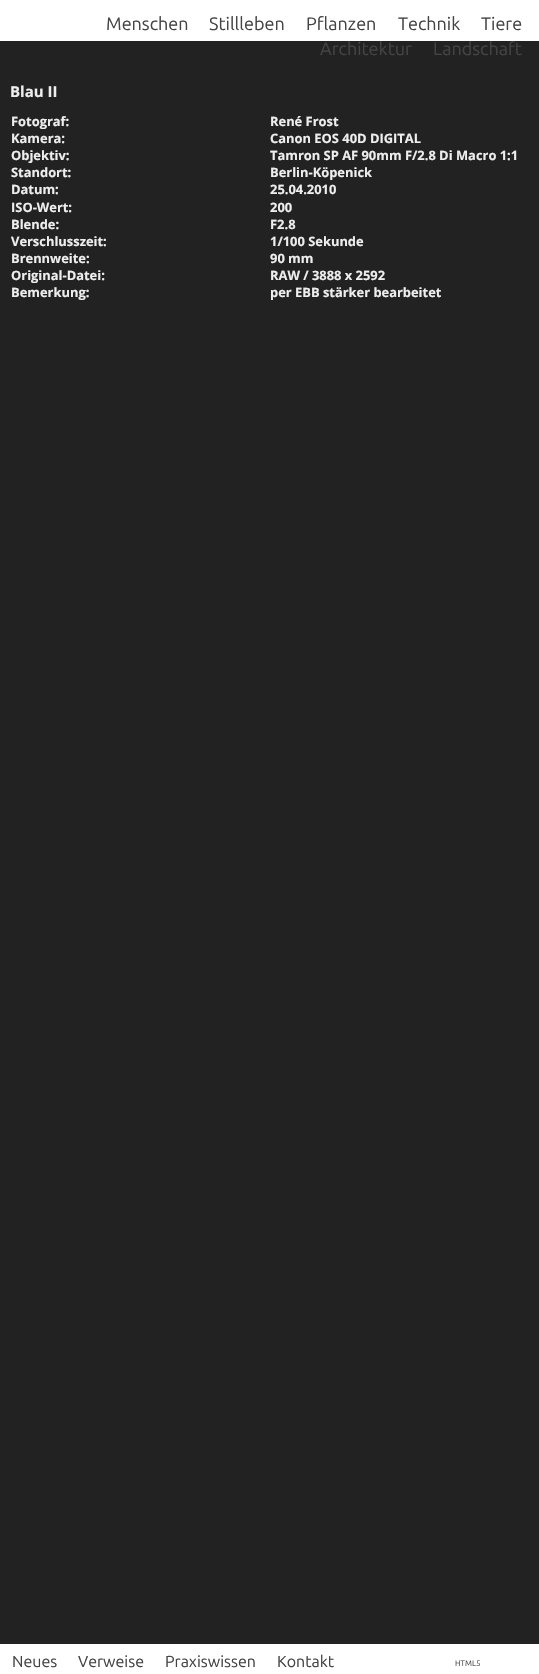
#include "include/core/SkBlurTypes.h"
#include "include/core/SkCanvas.h"
#include "include/core/SkData.h"
#include "include/core/SkFont.h"
#include "include/core/SkFontMgr.h"
#include "include/core/SkImage.h"
#include "include/core/SkMaskFilter.h"
#include "include/core/SkPaint.h"
#include "include/core/SkPathBuilder.h"
#include "include/core/SkTextBlob.h"
#include "include/effects/SkDashPathEffect.h"
#include "include/effects/SkGradientShader.h"
#include "include/utils/SkParsePath.h"

extern sk_sp<SkFontMgr> fontMgr;

static SkFont font(const char* family, int weight, float size, bool italic = false) {
    SkFontStyle style(weight, SkFontStyle::kNormal_Width,
        italic ? SkFontStyle::kItalic_Slant : SkFontStyle::kUpright_Slant);
    SkFont result(fontMgr->matchFamilyStyle(family, style), size);
    result.setSubpixel(true);
    return result;
}

static void drawLabel(SkCanvas* canvas, const char* s, float x, float y, const SkFont& font, SkColor color) {
    SkPaint ink(SkColor4f::FromColor(color));
    ink.setAntiAlias(true);
    canvas->drawString(s, x, y, font, ink);
}

static void fillRect(SkCanvas* canvas, float x, float y, float w, float h, SkColor color) {
    SkPaint ink(SkColor4f::FromColor(color));
    ink.setAntiAlias(true);
    canvas->drawRect(SkRect::MakeXYWH(x, y, w, h), ink);
}

void draw(SkCanvas* canvas) {
    SkPaint paint;
    paint.setAntiAlias(true);
    canvas->clear(0xFF222222);
    fillRect(canvas, 0, 0, 539, 41, 0xFFFFFFFF);
    SkFont font1 = font("Ubuntu", 400, 18);
    drawLabel(canvas, "Menschen", 106, 30, font1, 0xFF444444);
    drawLabel(canvas, "Stillleben", 209, 30, font1, 0xFF444444);
    drawLabel(canvas, "Pflanzen", 306, 30, font1, 0xFF444444);
    drawLabel(canvas, "Technik", 398, 30, font1, 0xFF444444);
    drawLabel(canvas, "Tiere", 481, 30, font1, 0xFF444444);
    drawLabel(canvas, "Architektur", 320, 55, font1, 0xFF444444);
    drawLabel(canvas, "Landschaft", 433, 55, font1, 0xFF444444);
    SkFont font2 = font("Open Sans", 700, 15);
    drawLabel(canvas, "Blau II", 10, 97, font2, 0xFFEEEEEE);
    SkFont font3 = font("Open Sans", 700, 12.9f);
    drawLabel(canvas, "Fotograf:", 11, 126, font3, 0xFFEEEEEE);
    drawLabel(canvas, "René Frost", 270, 126, font3, 0xFFEEEEEE);
    drawLabel(canvas, "Kamera:", 11, 143, font3, 0xFFEEEEEE);
    drawLabel(canvas, "Canon EOS 40D DIGITAL", 270, 143, font3, 0xFFEEEEEE);
    drawLabel(canvas, "Objektiv:", 11, 160, font3, 0xFFEEEEEE);
    drawLabel(canvas, "Tamron SP AF 90mm F/2.8 Di Macro 1:1", 270, 160, font3, 0xFFEEEEEE);
    drawLabel(canvas, "Standort:", 11, 177, font3, 0xFFEEEEEE);
    drawLabel(canvas, "Berlin-Köpenick", 270, 177, font3, 0xFFEEEEEE);
    drawLabel(canvas, "Datum:", 11, 194, font3, 0xFFEEEEEE);
    drawLabel(canvas, "25.04.2010", 270, 194, font3, 0xFFEEEEEE);
    drawLabel(canvas, "ISO-Wert:", 11, 212, font3, 0xFFEEEEEE);
    drawLabel(canvas, "200", 270, 212, font3, 0xFFEEEEEE);
    drawLabel(canvas, "Blende:", 11, 229, font3, 0xFFEEEEEE);
    drawLabel(canvas, "F2.8", 270, 229, font3, 0xFFEEEEEE);
    drawLabel(canvas, "Verschlusszeit:", 11, 246, font3, 0xFFEEEEEE);
    drawLabel(canvas, "1/100 Sekunde", 270, 246, font3, 0xFFEEEEEE);
    drawLabel(canvas, "Brennweite:", 11, 263, font3, 0xFFEEEEEE);
    drawLabel(canvas, "90 mm", 270, 263, font3, 0xFFEEEEEE);
    drawLabel(canvas, "Original-Datei:", 11, 280, font3, 0xFFEEEEEE);
    drawLabel(canvas, "RAW / 3888 x 2592", 270, 280, font3, 0xFFEEEEEE);
    drawLabel(canvas, "Bemerkung:", 11, 297, font3, 0xFFEEEEEE);
    drawLabel(canvas, "per EBB stärker bearbeitet", 270, 297, font3, 0xFFEEEEEE);
    fillRect(canvas, 0, 1644, 539, 30, 0xFFFFFFFF);
    SkFont font4 = font("Ubuntu", 400, 16);
    drawLabel(canvas, "Neues", 12, 1667, font4, 0xFF444444);
    drawLabel(canvas, "Verweise", 78, 1667, font4, 0xFF444444);
    drawLabel(canvas, "Praxiswissen", 165, 1667, font4, 0xFF444444);
    drawLabel(canvas, "Kontakt", 277, 1667, font4, 0xFF444444);
    SkFont font5 = font("Ubuntu", 400, 8);
    drawLabel(canvas, "HTML5", 455, 1666, font5, 0xFF444444);
}
